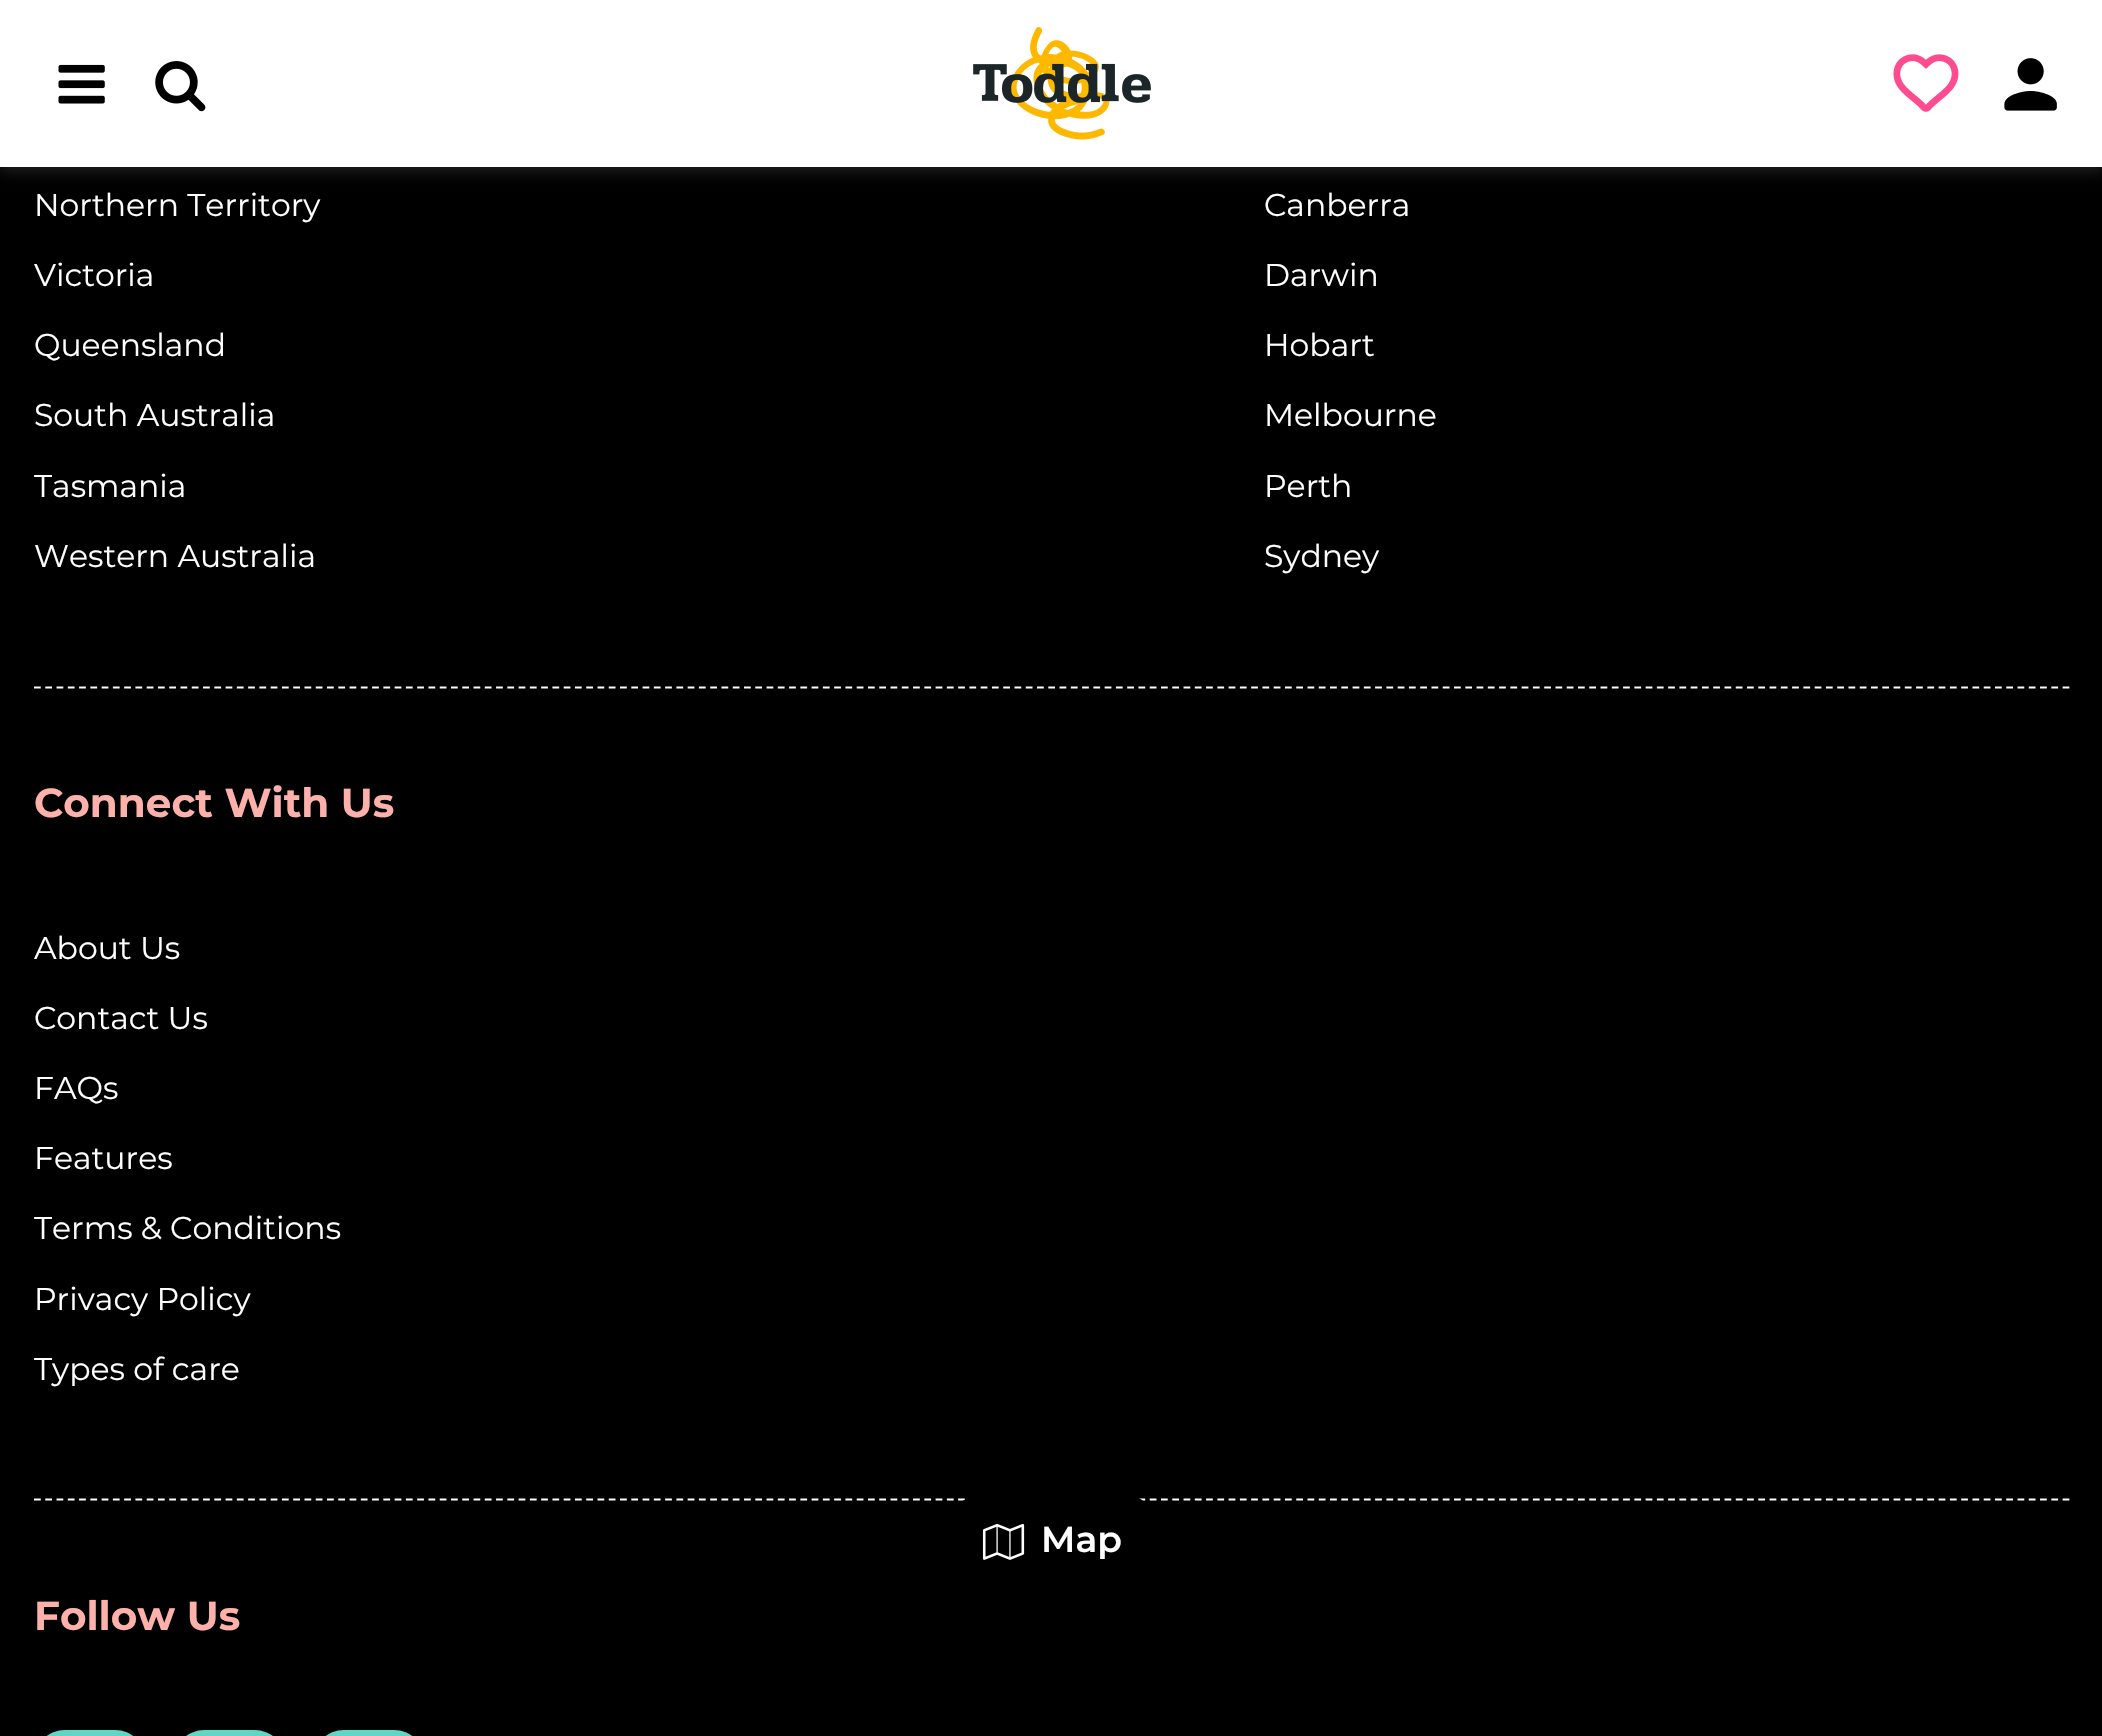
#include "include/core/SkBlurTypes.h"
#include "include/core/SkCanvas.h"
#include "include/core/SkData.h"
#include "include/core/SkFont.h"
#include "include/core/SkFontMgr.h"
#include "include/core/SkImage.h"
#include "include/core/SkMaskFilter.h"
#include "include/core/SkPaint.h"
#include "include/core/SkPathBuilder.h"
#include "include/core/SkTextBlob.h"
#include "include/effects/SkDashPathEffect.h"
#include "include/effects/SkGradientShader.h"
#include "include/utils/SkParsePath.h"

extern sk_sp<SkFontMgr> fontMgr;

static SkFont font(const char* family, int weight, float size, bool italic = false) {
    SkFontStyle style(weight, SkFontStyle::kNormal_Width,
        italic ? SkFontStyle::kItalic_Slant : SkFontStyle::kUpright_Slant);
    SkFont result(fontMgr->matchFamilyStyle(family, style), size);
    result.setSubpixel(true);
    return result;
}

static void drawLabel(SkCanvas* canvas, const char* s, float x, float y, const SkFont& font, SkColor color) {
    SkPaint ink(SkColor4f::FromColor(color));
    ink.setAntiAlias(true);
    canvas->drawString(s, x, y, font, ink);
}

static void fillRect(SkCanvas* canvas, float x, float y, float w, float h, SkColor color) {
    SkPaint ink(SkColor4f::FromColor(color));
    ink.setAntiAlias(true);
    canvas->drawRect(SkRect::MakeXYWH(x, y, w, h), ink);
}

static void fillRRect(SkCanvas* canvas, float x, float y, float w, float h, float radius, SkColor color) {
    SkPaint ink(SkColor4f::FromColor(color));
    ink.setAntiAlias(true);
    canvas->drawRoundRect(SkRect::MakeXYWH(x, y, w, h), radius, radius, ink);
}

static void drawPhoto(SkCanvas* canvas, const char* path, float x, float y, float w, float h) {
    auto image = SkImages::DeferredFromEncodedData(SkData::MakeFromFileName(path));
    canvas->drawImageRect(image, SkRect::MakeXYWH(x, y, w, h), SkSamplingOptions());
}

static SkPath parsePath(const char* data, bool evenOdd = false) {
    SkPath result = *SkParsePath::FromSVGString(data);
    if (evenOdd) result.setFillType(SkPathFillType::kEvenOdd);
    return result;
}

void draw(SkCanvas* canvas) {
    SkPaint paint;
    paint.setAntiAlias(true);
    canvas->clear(0xFF000000);
    paint.setColor(0x33AAAAAA);
    paint.setMaskFilter(SkMaskFilter::MakeBlur(kNormal_SkBlurStyle, 7));
    canvas->drawRect(SkRect::MakeXYWH(0, 5, 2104, 166), paint);
    paint.setMaskFilter(nullptr);
    fillRect(canvas, 0, 0, 2102, 167, 0xFFFFFFFF);
    drawPhoto(canvas, "assets/img1.png", 58, 64, 47, 40);
    drawPhoto(canvas, "assets/img2.png", 155, 61, 51, 51);
    drawPhoto(canvas, "assets/img3.png", 973, 27, 178, 113);
    drawPhoto(canvas, "assets/img4.png", 1893, 54, 66, 58);
    drawPhoto(canvas, "assets/img5.png", 2004, 58, 53, 53);
    SkFont font1 = font("Montserrat", 400, 31.5f);
    drawLabel(canvas, "Northern Territory", 34, 216, font1, 0xFFFFFFFF);
    drawLabel(canvas, "Victoria", 34, 286, font1, 0xFFFFFFFF);
    drawLabel(canvas, "Queensland", 34, 356, font1, 0xFFFFFFFF);
    drawLabel(canvas, "South Australia", 34, 426, font1, 0xFFFFFFFF);
    drawLabel(canvas, "Tasmania", 34, 497, font1, 0xFFFFFFFF);
    drawLabel(canvas, "Western Australia", 34, 567, font1, 0xFFFFFFFF);
    drawLabel(canvas, "Canberra", 1264, 216, font1, 0xFFFFFFFF);
    drawLabel(canvas, "Darwin", 1264, 286, font1, 0xFFFFFFFF);
    drawLabel(canvas, "Hobart", 1264, 356, font1, 0xFFFFFFFF);
    drawLabel(canvas, "Melbourne", 1264, 426, font1, 0xFFFFFFFF);
    drawLabel(canvas, "Perth", 1264, 497, font1, 0xFFFFFFFF);
    drawLabel(canvas, "Sydney", 1264, 567, font1, 0xFFFFFFFF);
    paint.setStroke(true);
    paint.setStrokeWidth(2.2f);
    paint.setColor(0xFFFFFFFF);
    paint.setPathEffect(SkDashPathEffect::Make({{6.75f, 4.52f}}, 0));
    canvas->drawPath(parsePath("M34 687.5H2070"), paint);
    paint.setPathEffect(nullptr);
    SkFont font2 = font("Montserrat", 700, 40.5f);
    drawLabel(canvas, "Connect With Us", 34, 817, font2, 0xFFFEB1AB);
    drawLabel(canvas, "About Us", 34, 959, font1, 0xFFFFFFFF);
    drawLabel(canvas, "Contact Us", 34, 1029, font1, 0xFFFFFFFF);
    drawLabel(canvas, "FAQs", 34, 1099, font1, 0xFFFFFFFF);
    drawLabel(canvas, "Features", 34, 1169, font1, 0xFFFFFFFF);
    drawLabel(canvas, "Terms & Conditions", 34, 1239, font1, 0xFFFFFFFF);
    drawLabel(canvas, "Privacy Policy", 34, 1310, font1, 0xFFFFFFFF);
    drawLabel(canvas, "Types of care", 34, 1380, font1, 0xFFFFFFFF);
    paint.setPathEffect(SkDashPathEffect::Make({{6.75f, 4.52f}}, 0));
    canvas->drawPath(parsePath("M34 1499.5H2070"), paint);
    paint.setPathEffect(nullptr);
    drawLabel(canvas, "Follow Us", 34, 1630, font2, 0xFFFEB1AB);
    fillRRect(canvas, 34, 1730, 112, 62, 56, 0xFF60D6C5);
    fillRRect(canvas, 173, 1730, 113, 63, 56.5f, 0xFF60D6C5);
    fillRRect(canvas, 313, 1730, 112, 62, 56, 0xFF60D6C5);
    fillRRect(canvas, 943, 1490, 220, 103, 51.5f, 0xFF000000);
    drawPhoto(canvas, "assets/img6.png", 982, 1523, 43, 37);
    SkFont font3 = font("Montserrat", 600, 36);
    drawLabel(canvas, "Map", 1041, 1552, font3, 0xFFFFFFFF);
}
